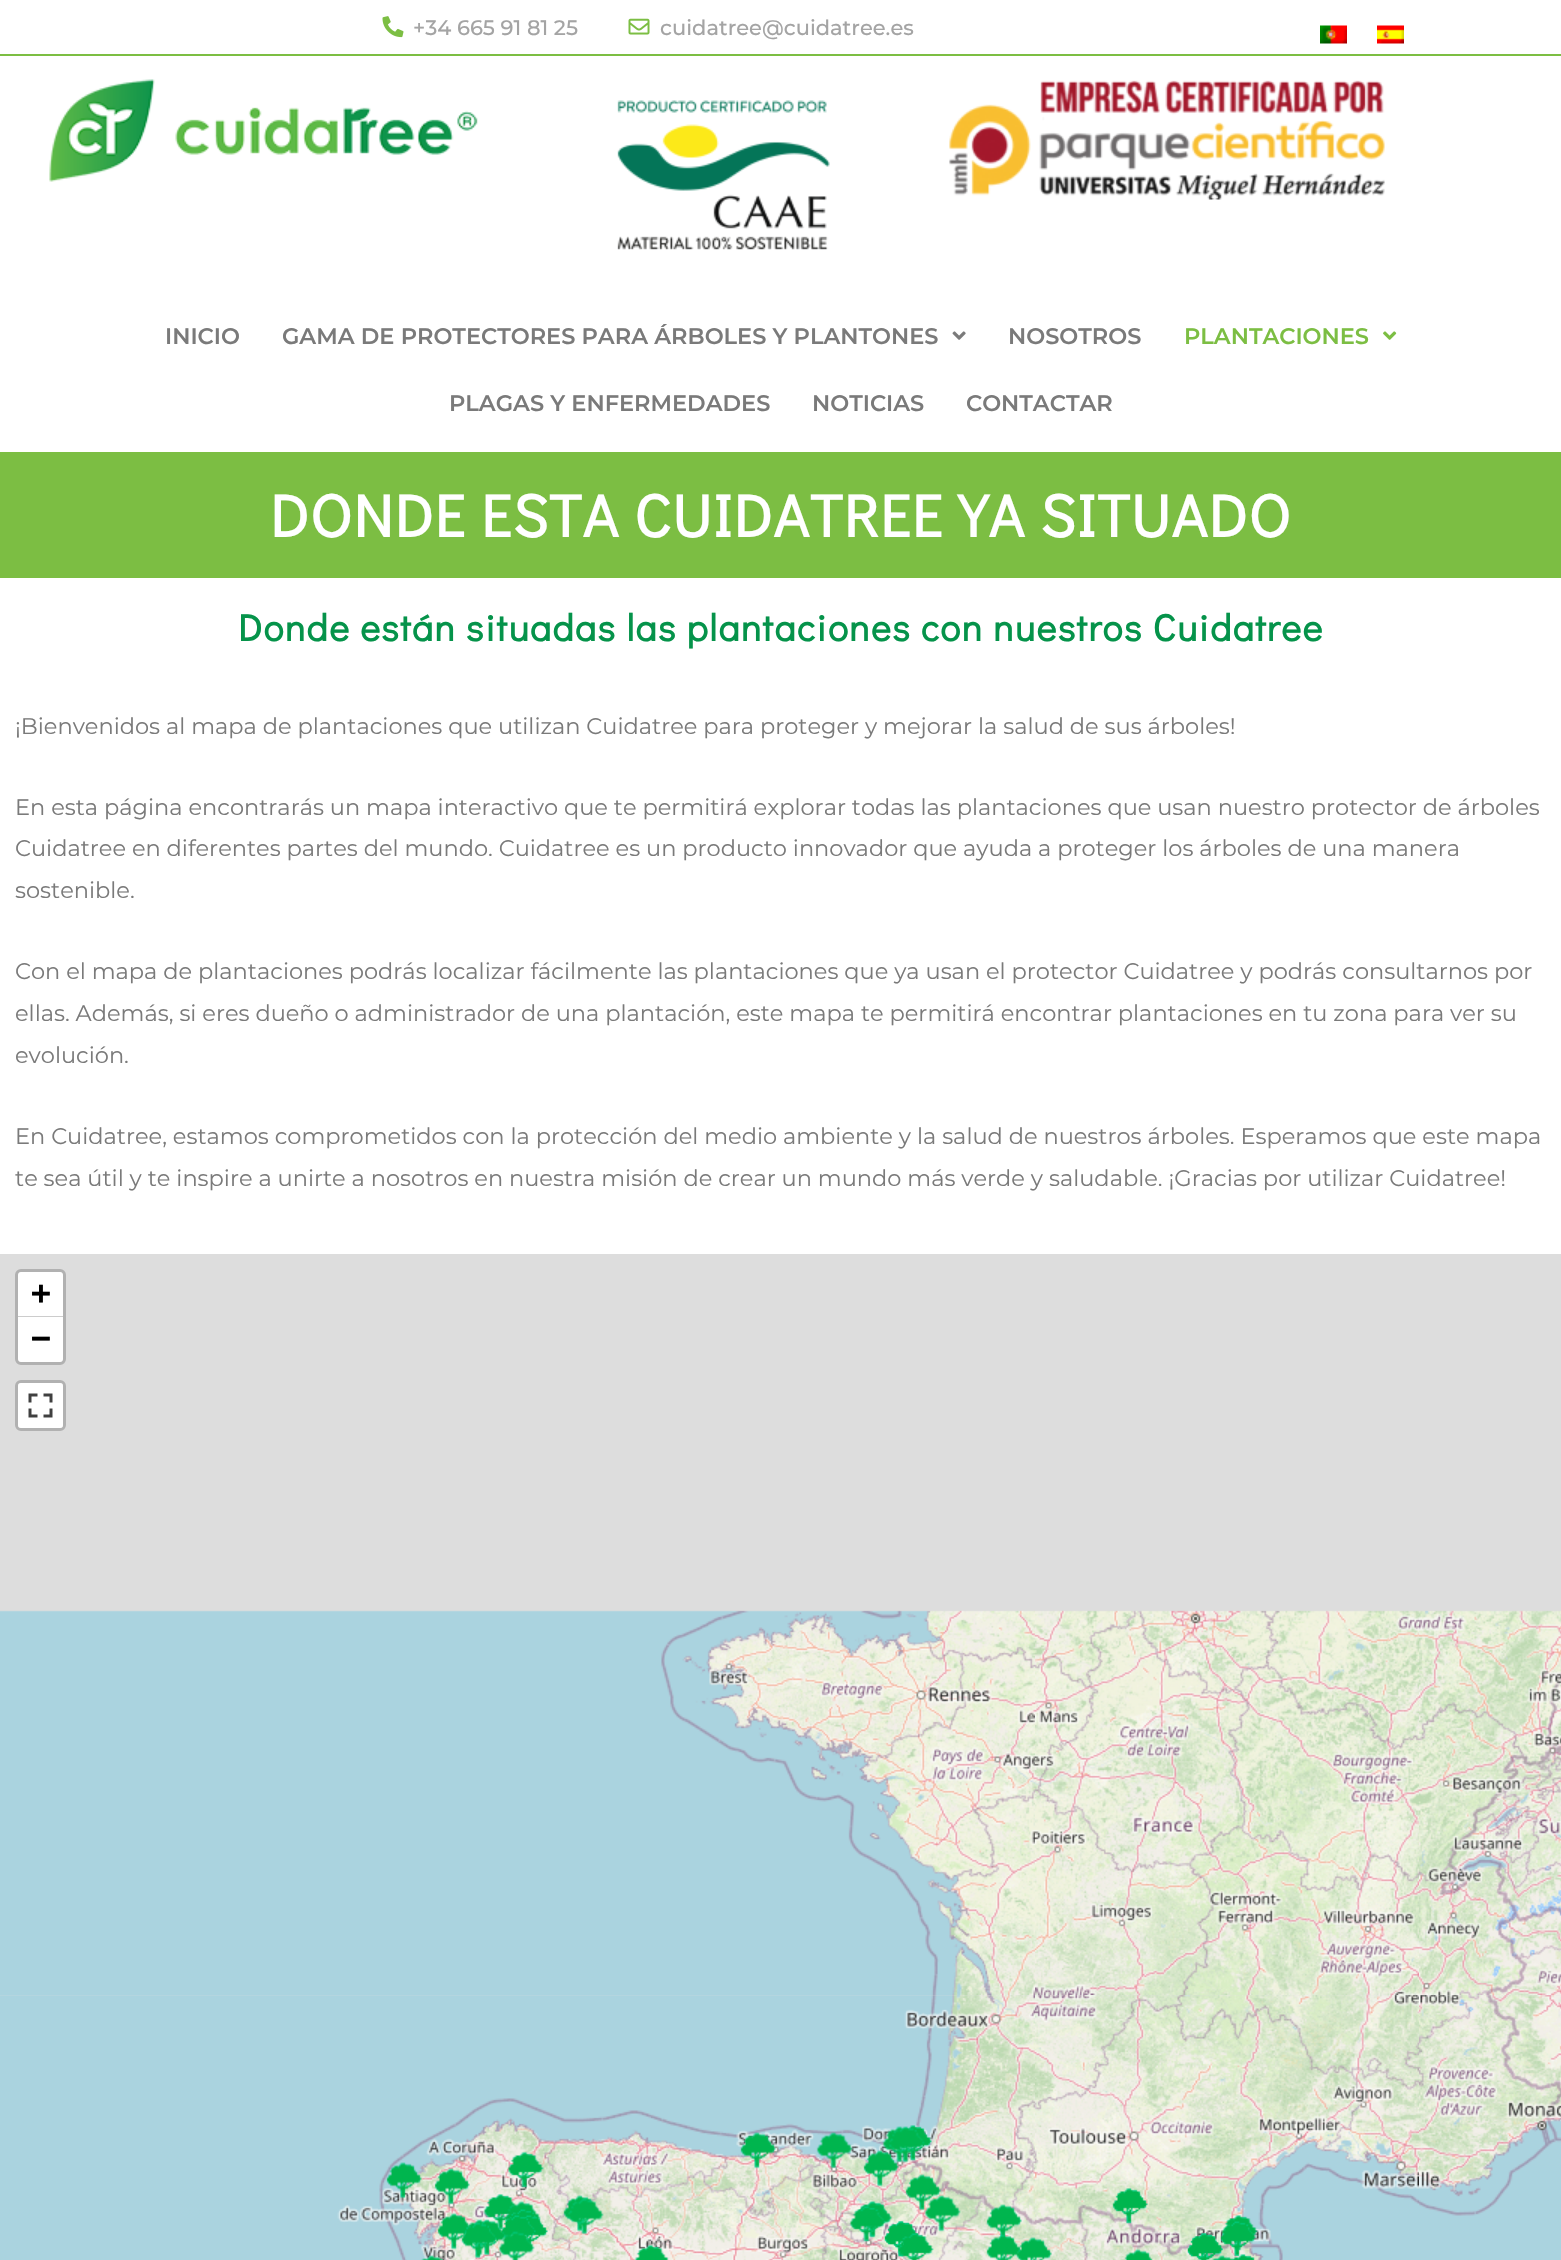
#include "include/core/SkBlurTypes.h"
#include "include/core/SkCanvas.h"
#include "include/core/SkData.h"
#include "include/core/SkFont.h"
#include "include/core/SkFontMgr.h"
#include "include/core/SkImage.h"
#include "include/core/SkMaskFilter.h"
#include "include/core/SkPaint.h"
#include "include/core/SkPathBuilder.h"
#include "include/core/SkTextBlob.h"
#include "include/effects/SkDashPathEffect.h"
#include "include/effects/SkGradientShader.h"
#include "include/utils/SkParsePath.h"

extern sk_sp<SkFontMgr> fontMgr;

static SkFont font(const char* family, int weight, float size, bool italic = false) {
    SkFontStyle style(weight, SkFontStyle::kNormal_Width,
        italic ? SkFontStyle::kItalic_Slant : SkFontStyle::kUpright_Slant);
    SkFont result(fontMgr->matchFamilyStyle(family, style), size);
    result.setSubpixel(true);
    return result;
}

static void drawLabel(SkCanvas* canvas, const char* s, float x, float y, const SkFont& font, SkColor color) {
    SkPaint ink(SkColor4f::FromColor(color));
    ink.setAntiAlias(true);
    canvas->drawString(s, x, y, font, ink);
}

static void drawTracked(SkCanvas* canvas, const char* s, float x, float y, const SkFont& font, const SkPaint& ink, float letter, float word) {
    std::vector<SkGlyphID> glyphs(font.countText(s, strlen(s), SkTextEncoding::kUTF8));
    std::vector<float> xs(glyphs.size());
    font.textToGlyphs(s, strlen(s), SkTextEncoding::kUTF8, glyphs);
    font.getXPos(glyphs, xs, x);
    float extra = 0;
    for (size_t i = 0; i < glyphs.size(); i++) {
        xs[i] += extra;
        extra += letter + word * (glyphs[i] == font.unicharToGlyph(' '));
    }
    canvas->drawTextBlob(SkTextBlob::MakeFromPosHGlyphs(glyphs, xs, y, font), 0, 0, ink);
}

static void fillRect(SkCanvas* canvas, float x, float y, float w, float h, SkColor color) {
    SkPaint ink(SkColor4f::FromColor(color));
    ink.setAntiAlias(true);
    canvas->drawRect(SkRect::MakeXYWH(x, y, w, h), ink);
}

static void fillRRect(SkCanvas* canvas, float x, float y, float w, float h, float radius, SkColor color) {
    SkPaint ink(SkColor4f::FromColor(color));
    ink.setAntiAlias(true);
    canvas->drawRoundRect(SkRect::MakeXYWH(x, y, w, h), radius, radius, ink);
}

static void drawPhoto(SkCanvas* canvas, const char* path, float x, float y, float w, float h) {
    auto image = SkImages::DeferredFromEncodedData(SkData::MakeFromFileName(path));
    canvas->drawImageRect(image, SkRect::MakeXYWH(x, y, w, h), SkSamplingOptions());
}

static SkPath parsePath(const char* data, bool evenOdd = false) {
    SkPath result = *SkParsePath::FromSVGString(data);
    if (evenOdd) result.setFillType(SkPathFillType::kEvenOdd);
    return result;
}

void draw(SkCanvas* canvas) {
    SkPaint paint;
    paint.setAntiAlias(true);
    canvas->clear(0xFFFFFFFF);
    fillRect(canvas, 0, 54, 1561, 2, 0xFF7CBE43);
    drawPhoto(canvas, "assets/img1.png", 382, 16, 22, 22);
    SkFont font1 = font("Montserrat", 500, 21);
    drawLabel(canvas, "+34 665 91 81 25", 413, 35, font1, 0xFFA4A4A4);
    drawPhoto(canvas, "assets/img2.png", 628, 18, 22, 17);
    drawLabel(canvas, "cuidatree@cuidatree.es", 660, 35, font1, 0xFFA4A4A4);
    drawPhoto(canvas, "assets/img3.png", 1320, 25, 27, 19);
    drawPhoto(canvas, "assets/img4.png", 1377, 25, 27, 19);
    drawPhoto(canvas, "assets/img5.png", 49, 79, 429, 103);
    drawPhoto(canvas, "assets/img6.png", 617, 100, 213, 150);
    drawPhoto(canvas, "assets/img7.png", 949, 80, 436, 120);
    SkFont font2 = font("Montserrat", 600, 22.5f);
    drawLabel(canvas, "INICIO", 165, 344, font2, 0xFF7A7A7A);
    drawLabel(canvas, "GAMA DE PROTECTORES PARA ÁRBOLES Y PLANTONES", 282, 344, font2, 0xFF7A7A7A);
    drawPhoto(canvas, "assets/img8.png", 952, 331, 14, 9);
    drawLabel(canvas, "NOSOTROS", 1008, 344, font2, 0xFF7A7A7A);
    drawLabel(canvas, "PLANTACIONES", 1184, 344, font2, 0xFF7CBE43);
    drawPhoto(canvas, "assets/img9.png", 1383, 331, 14, 9);
    drawLabel(canvas, "PLAGAS Y ENFERMEDADES", 449, 411, font2, 0xFF7A7A7A);
    drawLabel(canvas, "NOTICIAS", 812, 411, font2, 0xFF7A7A7A);
    drawLabel(canvas, "CONTACTAR", 966, 411, font2, 0xFF7A7A7A);
    fillRect(canvas, 0, 452, 1561, 126, 0xFF7CBE43);
    SkFont font3 = font("Didact Gothic", 700, 60);
    paint.setColor(0xFFFFFFFF);
    drawTracked(canvas, "DONDE ESTA CUIDATREE YA SITUADO", 270, 537, font3, paint, 1.5f, 0);
    SkFont font4 = font("Didact Gothic", 700, 37.5f);
    paint.setColor(0xFF05934A);
    drawTracked(canvas, "Donde están situadas las plantaciones con nuestros Cuidatree", 238, 641, font4, paint, 1.5f, 0);
    SkFont font5 = font("Montserrat", 400, 22.5f);
    drawLabel(canvas, "¡Bienvenidos al mapa de plantaciones que utilizan Cuidatree para proteger y mejorar la salud de sus árboles!", 15, 734, font5, 0xFF7A7A7A);
    drawLabel(canvas, "En esta página encontrarás un mapa interactivo que te permitirá explorar todas las plantaciones que usan nuestro protector de árboles", 15, 815, font5, 0xFF7A7A7A);
    drawLabel(canvas, "Cuidatree en diferentes partes del mundo. Cuidatree es un producto innovador que ayuda a proteger los árboles de una manera", 15, 856, font5, 0xFF7A7A7A);
    drawLabel(canvas, "sostenible.", 15, 898, font5, 0xFF7A7A7A);
    drawLabel(canvas, "Con el mapa de plantaciones podrás localizar fácilmente las plantaciones que ya usan el protector Cuidatree y podrás consultarnos por", 15, 979, font5, 0xFF7A7A7A);
    drawLabel(canvas, "ellas. Además, si eres dueño o administrador de una plantación, este mapa te permitirá encontrar plantaciones en tu zona para ver su", 15, 1021, font5, 0xFF7A7A7A);
    drawLabel(canvas, "evolución.", 15, 1063, font5, 0xFF7A7A7A);
    drawLabel(canvas, "En Cuidatree, estamos comprometidos con la protección del medio ambiente y la salud de nuestros árboles. Esperamos que este mapa", 15, 1144, font5, 0xFF7A7A7A);
    drawLabel(canvas, "te sea útil y te inspire a unirte a nosotros en nuestra misión de crear un mundo más verde y saludable. ¡Gracias por utilizar Cuidatree!", 15, 1186, font5, 0xFF7A7A7A);
    fillRect(canvas, 0, 1254, 1561, 742, 0xFFDDDDDD);
    paint.setStroke(true);
    paint.setStrokeWidth(3);
    paint.setColor(0xFFB1B1B1);
    canvas->drawRoundRect(SkRect::MakeXYWH(16.5f, 1270.5f, 48, 93), 4.5f, 4.5f, paint);
    paint.setStroke(false);
    paint.setColor(0xFFFFFFFF);
    canvas->drawPath(parsePath("M21 1272H60C61.5 1272 63 1273.5 63 1275V1317H18V1275C18 1273.5 19.5 1272 21 1272Z"), paint);
    fillRect(canvas, 18, 1316, 45, 1, 0xFFCCCCCC);
    SkFont font6 = font("DejaVu Sans Mono", 700, 33);
    drawLabel(canvas, "+", 31, 1304, font6, 0xFF000000);
    canvas->drawPath(parsePath("M18 1317H63V1359C63 1360.5 61.5 1362 60 1362H21C19.5 1362 18 1360.5 18 1359Z"), paint);
    drawLabel(canvas, "−", 31, 1349, font6, 0xFF000000);
    paint.setStroke(true);
    paint.setColor(0xFFB1B1B1);
    canvas->drawRoundRect(SkRect::MakeXYWH(16.5f, 1381.5f, 48, 48), 4.5f, 4.5f, paint);
    fillRRect(canvas, 18, 1383, 45, 45, 3, 0xFFFFFFFF);
    drawPhoto(canvas, "assets/img10.png", 28, 1393, 25, 25);
    drawPhoto(canvas, "assets/img11.png", 0, 1610, 267, 385);
    drawPhoto(canvas, "assets/img12.png", 267, 1610, 384, 385);
    drawPhoto(canvas, "assets/img13.png", 651, 1610, 384, 385);
    drawPhoto(canvas, "assets/img14.png", 1035, 1610, 384, 385);
    drawPhoto(canvas, "assets/img15.png", 1419, 1610, 142, 385);
    drawPhoto(canvas, "assets/img16.png", 0, 1995, 267, 265);
    drawPhoto(canvas, "assets/img17.png", 267, 1995, 384, 265);
    drawPhoto(canvas, "assets/img18.png", 651, 1995, 384, 265);
    drawPhoto(canvas, "assets/img19.png", 1035, 1995, 384, 265);
    drawPhoto(canvas, "assets/img20.png", 1419, 1995, 142, 265);
    drawPhoto(canvas, "assets/img21.png", 899, 2125, 33, 36);
    drawPhoto(canvas, "assets/img22.png", 882, 2126, 36, 37);
    drawPhoto(canvas, "assets/img23.png", 386, 2162, 36, 37);
    drawPhoto(canvas, "assets/img24.png", 434, 2168, 36, 37);
    drawPhoto(canvas, "assets/img25.png", 507, 2152, 37, 36);
    drawPhoto(canvas, "assets/img26.png", 740, 2132, 36, 37);
    drawPhoto(canvas, "assets/img27.png", 816, 2132, 37, 37);
    drawPhoto(canvas, "assets/img29.png", 889, 2126, 36, 37);
    drawPhoto(canvas, "assets/img28.png", 863, 2150, 36, 37);
    drawPhoto(canvas, "assets/img30.png", 483, 2194, 36, 36);
    drawPhoto(canvas, "assets/img31.png", 563, 2195, 36, 37);
    drawPhoto(canvas, "assets/img32.png", 905, 2174, 36, 37);
    drawPhoto(canvas, "assets/img33.png", 924, 2195, 37, 37);
    drawPhoto(canvas, "assets/img34.png", 1112, 2188, 36, 36);
    drawPhoto(canvas, "assets/img35.png", 504, 2201, 37, 36);
    drawPhoto(canvas, "assets/img36.png", 568, 2198, 36, 37);
    drawPhoto(canvas, "assets/img37.png", 855, 2201, 37, 37);
    drawPhoto(canvas, "assets/img38.png", 855, 2201, 37, 37);
    drawPhoto(canvas, "assets/img39.png", 986, 2204, 36, 35);
    drawPhoto(canvas, "assets/img40.png", 437, 2213, 35, 37);
    drawPhoto(canvas, "assets/img41.png", 509, 2209, 33, 32);
    drawPhoto(canvas, "assets/img42.png", 849, 2206, 37, 36);
    drawPhoto(canvas, "assets/img45.png", 512, 2215, 36, 36);
    drawPhoto(canvas, "assets/img43.png", 500, 2215, 36, 36);
    drawPhoto(canvas, "assets/img44.png", 462, 2219, 36, 37);
    drawPhoto(canvas, "assets/img46.png", 1221, 2215, 37, 36);
    drawPhoto(canvas, "assets/img47.png", 472, 2219, 34, 37);
    drawPhoto(canvas, "assets/img48.png", 884, 2221, 36, 36);
    drawPhoto(canvas, "assets/img49.png", 461, 2222, 36, 37);
    drawPhoto(canvas, "assets/img50.png", 498, 2231, 37, 29);
    drawPhoto(canvas, "assets/img51.png", 884, 2221, 36, 36);
    drawPhoto(canvas, "assets/img52.png", 1220, 2221, 36, 36);
    drawPhoto(canvas, "assets/img53.png", 897, 2233, 37, 27);
    drawPhoto(canvas, "assets/img54.png", 1187, 2233, 36, 27);
    drawPhoto(canvas, "assets/img55.png", 420, 2255, 24, 5);
    drawPhoto(canvas, "assets/img56.png", 634, 2245, 35, 15);
    drawPhoto(canvas, "assets/img57.png", 986, 2234, 36, 26);
    drawPhoto(canvas, "assets/img58.png", 1016, 2237, 36, 23);
    drawPhoto(canvas, "assets/img59.png", 1124, 2249, 29, 11);
    drawPhoto(canvas, "assets/img60.png", 1187, 2233, 36, 27);
    drawPhoto(canvas, "assets/img61.png", 1231, 2254, 24, 6);
    drawPhoto(canvas, "assets/img62.png", 1211, 2255, 23, 5);
    drawPhoto(canvas, "assets/img63.png", 1214, 2258, 7, 2);
}
